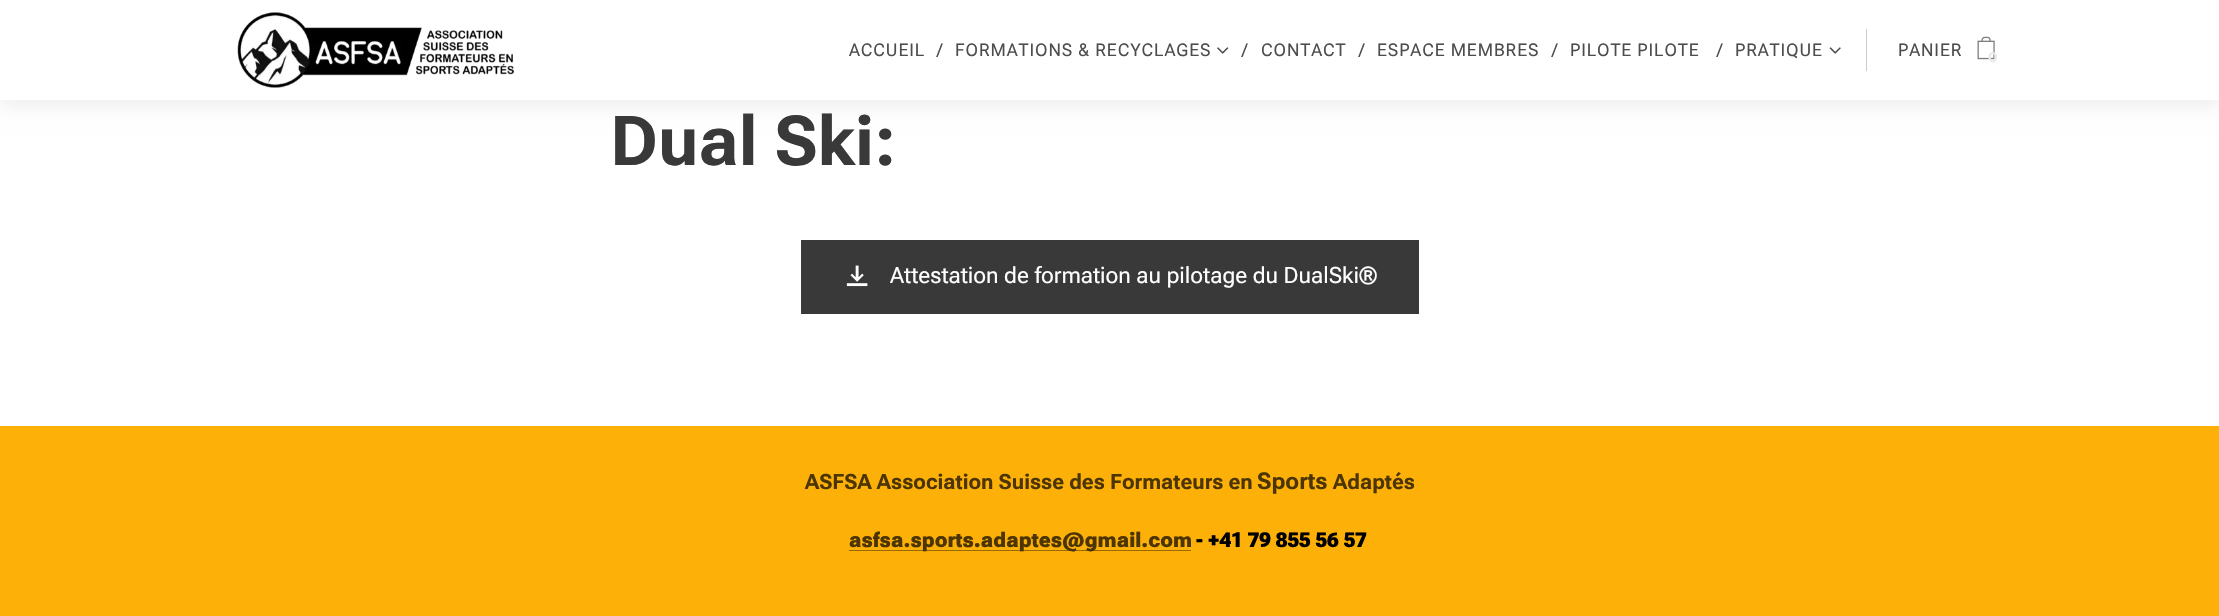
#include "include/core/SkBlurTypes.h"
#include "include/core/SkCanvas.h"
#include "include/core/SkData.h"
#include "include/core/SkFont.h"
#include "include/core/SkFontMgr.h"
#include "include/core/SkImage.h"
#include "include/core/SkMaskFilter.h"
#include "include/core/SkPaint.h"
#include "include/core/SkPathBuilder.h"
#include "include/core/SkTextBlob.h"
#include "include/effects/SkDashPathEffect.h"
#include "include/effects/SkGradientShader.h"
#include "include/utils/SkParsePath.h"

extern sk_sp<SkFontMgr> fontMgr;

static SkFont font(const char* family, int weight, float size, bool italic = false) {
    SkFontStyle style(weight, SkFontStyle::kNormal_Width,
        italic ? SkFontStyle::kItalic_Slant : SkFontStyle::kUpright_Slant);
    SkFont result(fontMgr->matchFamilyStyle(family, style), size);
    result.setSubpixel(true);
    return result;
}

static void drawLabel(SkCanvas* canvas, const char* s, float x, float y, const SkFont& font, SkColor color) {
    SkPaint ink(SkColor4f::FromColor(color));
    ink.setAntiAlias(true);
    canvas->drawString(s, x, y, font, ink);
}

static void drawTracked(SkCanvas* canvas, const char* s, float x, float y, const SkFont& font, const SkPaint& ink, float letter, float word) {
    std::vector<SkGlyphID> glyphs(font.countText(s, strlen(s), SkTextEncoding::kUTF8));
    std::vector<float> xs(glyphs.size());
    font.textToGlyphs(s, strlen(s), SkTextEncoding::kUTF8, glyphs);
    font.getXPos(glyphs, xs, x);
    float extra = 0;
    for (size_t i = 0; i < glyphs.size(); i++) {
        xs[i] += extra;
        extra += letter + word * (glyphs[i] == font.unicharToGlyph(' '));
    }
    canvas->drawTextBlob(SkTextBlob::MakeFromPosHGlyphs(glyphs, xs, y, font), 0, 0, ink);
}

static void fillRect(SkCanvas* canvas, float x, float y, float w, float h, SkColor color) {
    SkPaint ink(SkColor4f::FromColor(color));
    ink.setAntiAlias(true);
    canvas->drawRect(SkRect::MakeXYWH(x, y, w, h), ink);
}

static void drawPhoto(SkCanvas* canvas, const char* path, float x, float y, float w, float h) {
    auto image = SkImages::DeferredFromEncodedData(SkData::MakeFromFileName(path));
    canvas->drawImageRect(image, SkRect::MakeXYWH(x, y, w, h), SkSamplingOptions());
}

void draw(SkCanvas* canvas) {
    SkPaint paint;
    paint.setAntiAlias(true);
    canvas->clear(0xFFFFFFFF);
    paint.setColor(0x12000000);
    paint.setMaskFilter(SkMaskFilter::MakeBlur(kNormal_SkBlurStyle, 9.5f));
    canvas->drawRect(SkRect::MakeXYWH(0, 6, 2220, 100), paint);
    paint.setMaskFilter(nullptr);
    fillRect(canvas, 0, 0, 2219, 100, 0xFFFFFFFF);
    drawPhoto(canvas, "assets/img1.png", 237, 12, 277, 76);
    SkFont font1 = font("Roboto Flex", 400, 17.5f);
    paint.setColor(0xFF4D4D4D);
    drawTracked(canvas, "ACCUEIL", 849, 56, font1, paint, 0.9f, 0);
    drawTracked(canvas, "/", 937, 56, font1, paint, 0.9f, 0);
    drawTracked(canvas, "FORMATIONS & RECYCLAGES", 955, 56, font1, paint, 0.9f, 0);
    drawTracked(canvas, "/", 1242, 56, font1, paint, 0.9f, 0);
    drawPhoto(canvas, "assets/img2.png", 1217, 47, 12, 7);
    drawTracked(canvas, "CONTACT", 1261, 56, font1, paint, 0.9f, 0);
    drawTracked(canvas, "/", 1359, 56, font1, paint, 0.9f, 0);
    drawTracked(canvas, "ESPACE MEMBRES", 1377, 56, font1, paint, 0.9f, 0);
    drawTracked(canvas, "/", 1552, 56, font1, paint, 0.9f, 0);
    drawTracked(canvas, "PILOTE PILOTE", 1570, 56, font1, paint, 0.9f, 0);
    drawTracked(canvas, "/", 1717, 56, font1, paint, 0.9f, 0);
    drawTracked(canvas, "PRATIQUE", 1735, 56, font1, paint, 0.9f, 0);
    drawPhoto(canvas, "assets/img3.png", 1829, 47, 12, 7);
    fillRect(canvas, 1866, 29, 1, 42, 0xFFCCCCCC);
    drawTracked(canvas, "PANIER", 1898, 56, font1, paint, 0.9f, 0);
    drawPhoto(canvas, "assets/img4.png", 1977, 36, 18, 24);
    SkFont font2 = font("Montserrat", 700, 14);
    drawLabel(canvas, "0", 1988, 62, font2, 0xFFEAEAEA);
    SkFont font3 = font("Roboto Flex", 700, 68.75f);
    drawLabel(canvas, "Dual Ski:", 610, 165, font3, 0xFF393939);
    fillRect(canvas, 801, 240, 618, 74, 0xFF393939);
    drawPhoto(canvas, "assets/img5.png", 846, 265, 22, 22);
    SkFont font4 = font("Roboto Flex", 400, 22.5f);
    drawLabel(canvas, "Attestation de formation au pilotage du DualSki®", 890, 283, font4, 0xFFFFFFFF);
    fillRect(canvas, 0, 426, 2219, 190, 0xFFFCB008);
    SkFont font5 = font("Roboto Flex", 700, 21);
    drawLabel(canvas, "ASFSA Association Suisse des Formateurs en", 805, 489, font5, 0xFF4C3502);
    SkFont font6 = font("Roboto Flex", 700, 23);
    drawLabel(canvas, "Sports", 1257, 489, font6, 0xFF4C3502);
    drawLabel(canvas, "Adaptés", 1333, 489, font5, 0xFF4C3502);
    fillRect(canvas, 849, 550, 342, 1, 0xFF976A05);
    SkFont font7 = font("Roboto Flex", 900, 20.5f);
    drawLabel(canvas, "asfsa.sports.adaptes@gmail.com", 849, 547, font7, 0xFF4C3502);
    drawLabel(canvas, "- +41 79 855 56 57", 1196, 547, font7, 0xFF000000);
}
